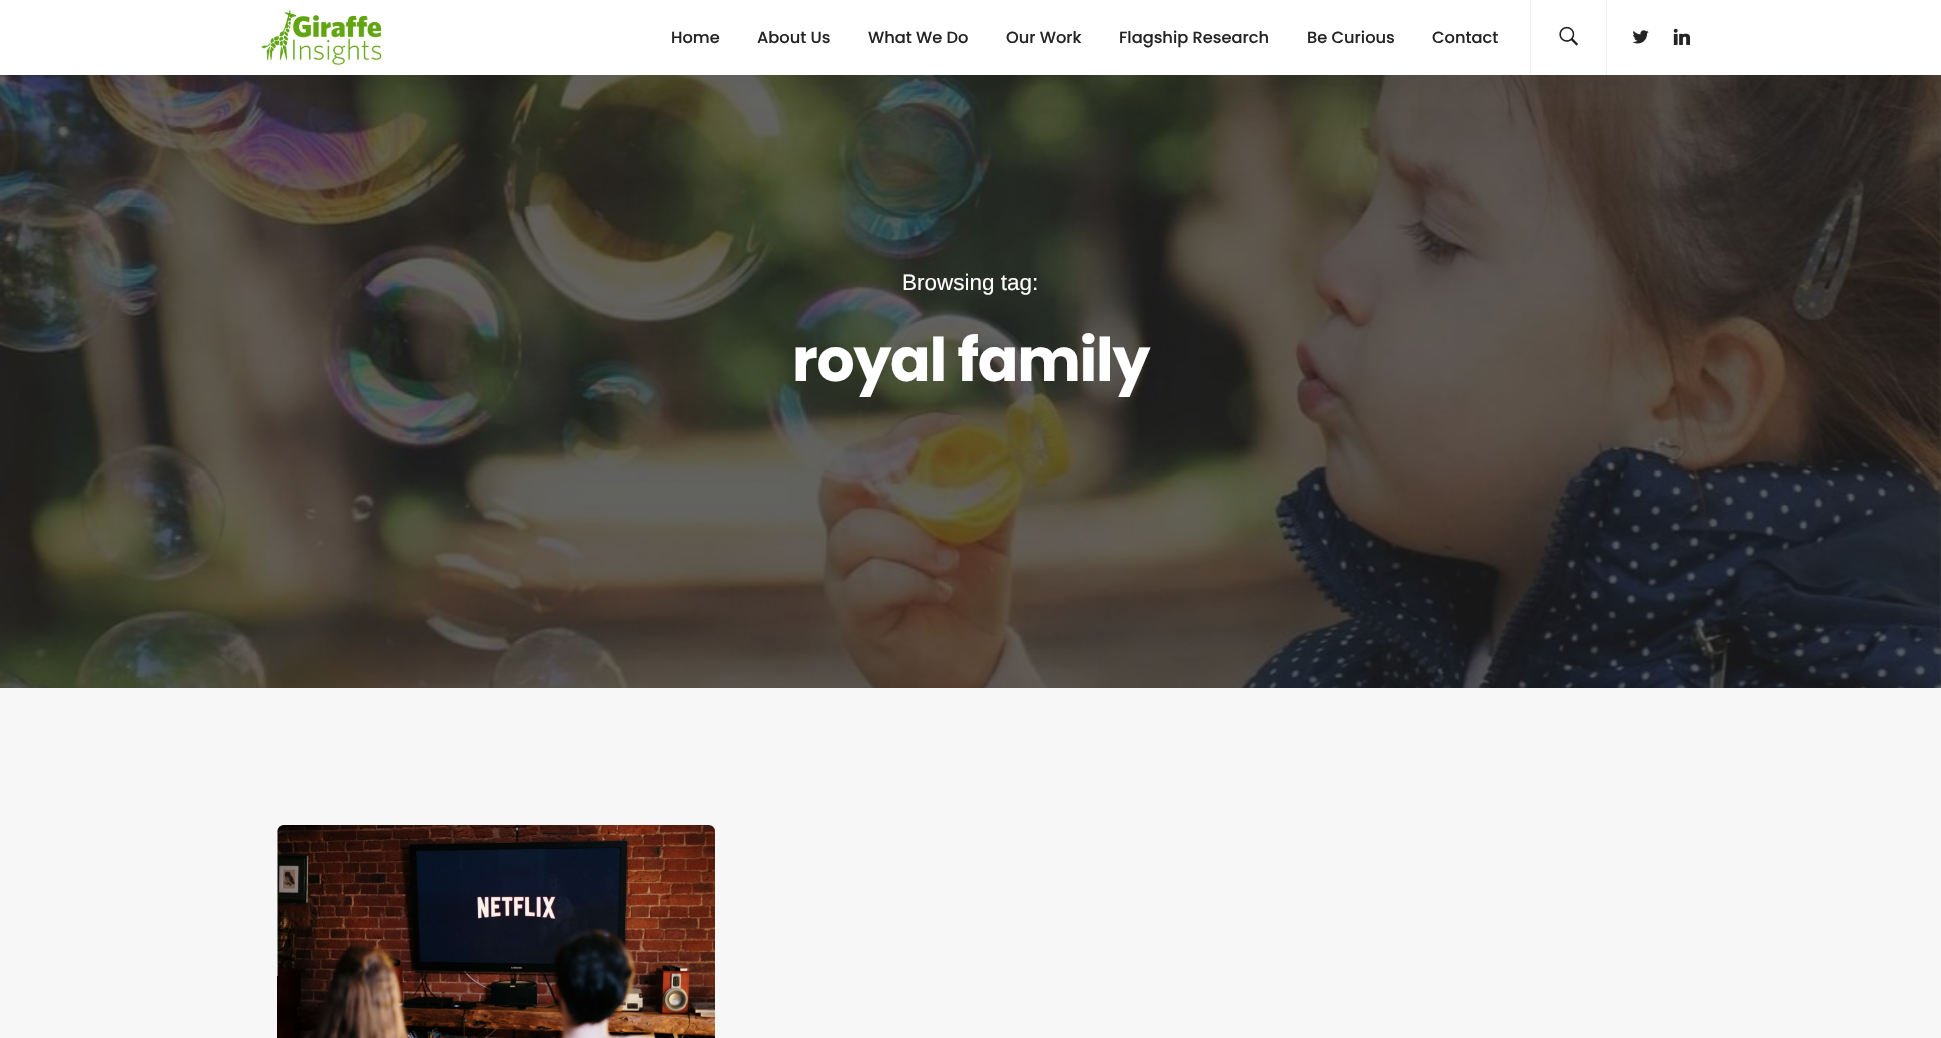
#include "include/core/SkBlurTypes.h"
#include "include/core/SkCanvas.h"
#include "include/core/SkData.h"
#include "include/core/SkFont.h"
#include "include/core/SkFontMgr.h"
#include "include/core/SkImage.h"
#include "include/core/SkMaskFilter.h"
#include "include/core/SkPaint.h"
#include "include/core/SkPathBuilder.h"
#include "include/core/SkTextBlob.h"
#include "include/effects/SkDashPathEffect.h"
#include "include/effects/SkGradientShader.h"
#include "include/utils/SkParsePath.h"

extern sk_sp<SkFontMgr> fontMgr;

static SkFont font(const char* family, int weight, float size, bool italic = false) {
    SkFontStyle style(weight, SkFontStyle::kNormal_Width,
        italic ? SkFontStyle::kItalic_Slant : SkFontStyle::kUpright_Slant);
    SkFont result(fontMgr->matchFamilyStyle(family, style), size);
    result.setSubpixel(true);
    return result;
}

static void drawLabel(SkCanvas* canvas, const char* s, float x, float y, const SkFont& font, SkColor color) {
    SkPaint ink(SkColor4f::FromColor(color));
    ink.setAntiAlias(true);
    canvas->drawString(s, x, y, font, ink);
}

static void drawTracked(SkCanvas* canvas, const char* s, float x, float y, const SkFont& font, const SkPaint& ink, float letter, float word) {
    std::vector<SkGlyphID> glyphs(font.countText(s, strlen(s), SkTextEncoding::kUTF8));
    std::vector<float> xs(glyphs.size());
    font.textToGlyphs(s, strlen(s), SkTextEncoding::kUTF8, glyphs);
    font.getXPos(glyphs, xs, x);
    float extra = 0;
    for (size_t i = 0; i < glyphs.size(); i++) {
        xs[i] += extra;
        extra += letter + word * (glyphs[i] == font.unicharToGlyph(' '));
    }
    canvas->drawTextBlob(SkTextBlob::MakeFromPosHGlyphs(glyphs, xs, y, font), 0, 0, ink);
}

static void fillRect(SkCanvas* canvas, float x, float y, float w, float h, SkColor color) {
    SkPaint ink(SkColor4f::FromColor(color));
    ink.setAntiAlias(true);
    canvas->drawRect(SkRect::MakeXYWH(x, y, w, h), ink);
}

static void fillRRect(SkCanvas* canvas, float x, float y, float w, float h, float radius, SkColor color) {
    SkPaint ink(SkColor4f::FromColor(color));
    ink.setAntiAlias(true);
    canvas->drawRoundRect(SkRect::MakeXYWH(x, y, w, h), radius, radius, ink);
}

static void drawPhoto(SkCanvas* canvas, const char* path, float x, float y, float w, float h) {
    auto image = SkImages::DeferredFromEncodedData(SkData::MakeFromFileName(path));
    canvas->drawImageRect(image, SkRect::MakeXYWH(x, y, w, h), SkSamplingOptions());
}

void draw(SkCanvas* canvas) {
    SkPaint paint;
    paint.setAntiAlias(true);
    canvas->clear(0xFFFFFFFF);
    drawPhoto(canvas, "assets/img7.png", 1940, 604, 1, 83);
    drawPhoto(canvas, "assets/img5.png", 0, 75, 1941, 613);
    fillRect(canvas, 0, 75, 1941, 613, 0xB31F1F1F);
    paint.setColor(0x121F1F1F);
    paint.setMaskFilter(SkMaskFilter::MakeBlur(kNormal_SkBlurStyle, 9.5f));
    canvas->drawRect(SkRect::MakeXYWH(6, 6, 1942, 75), paint);
    paint.setMaskFilter(nullptr);
    fillRect(canvas, 0, 0, 1941, 75, 0xFFFFFFFF);
    drawPhoto(canvas, "assets/img1.png", 261, 10, 121, 55);
    SkFont font1 = font("Poppins", 500, 16.25f);
    drawLabel(canvas, "Home", 671, 43, font1, 0xFF242424);
    drawLabel(canvas, "About Us", 757, 43, font1, 0xFF242424);
    drawLabel(canvas, "What We Do", 868, 43, font1, 0xFF242424);
    drawLabel(canvas, "Our Work", 1006, 43, font1, 0xFF242424);
    drawLabel(canvas, "Flagship Research", 1119, 43, font1, 0xFF242424);
    drawLabel(canvas, "Be Curious", 1307, 43, font1, 0xFF242424);
    drawLabel(canvas, "Contact", 1432, 43, font1, 0xFF242424);
    fillRect(canvas, 1530, 0, 1, 75, 0xFFEEEEEE);
    drawPhoto(canvas, "assets/img2.png", 1559, 26, 19, 20);
    fillRect(canvas, 1606, 0, 1, 75, 0xFFEEEEEE);
    drawPhoto(canvas, "assets/img3.png", 1632, 30, 17, 14);
    drawPhoto(canvas, "assets/img4.png", 1673, 28, 17, 17);
    SkFont font2 = font("Liberation Sans", 400, 22.5f);
    drawLabel(canvas, "Browsing tag:", 902, 290, font2, 0xFFFFFFFF);
    SkFont font3 = font("Poppins", 700, 60);
    paint.setColor(0xFFFFFFFF);
    drawTracked(canvas, "royal family", 792, 381, font3, paint, -1.25f, 0);
    fillRect(canvas, 0, 688, 1941, 350, 0xFFF7F7F7);
    fillRRect(canvas, 278, 825, 437, 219, 6, 0xFFFFFFFF);
    drawPhoto(canvas, "assets/img6.png", 277, 825, 438, 213);
}
